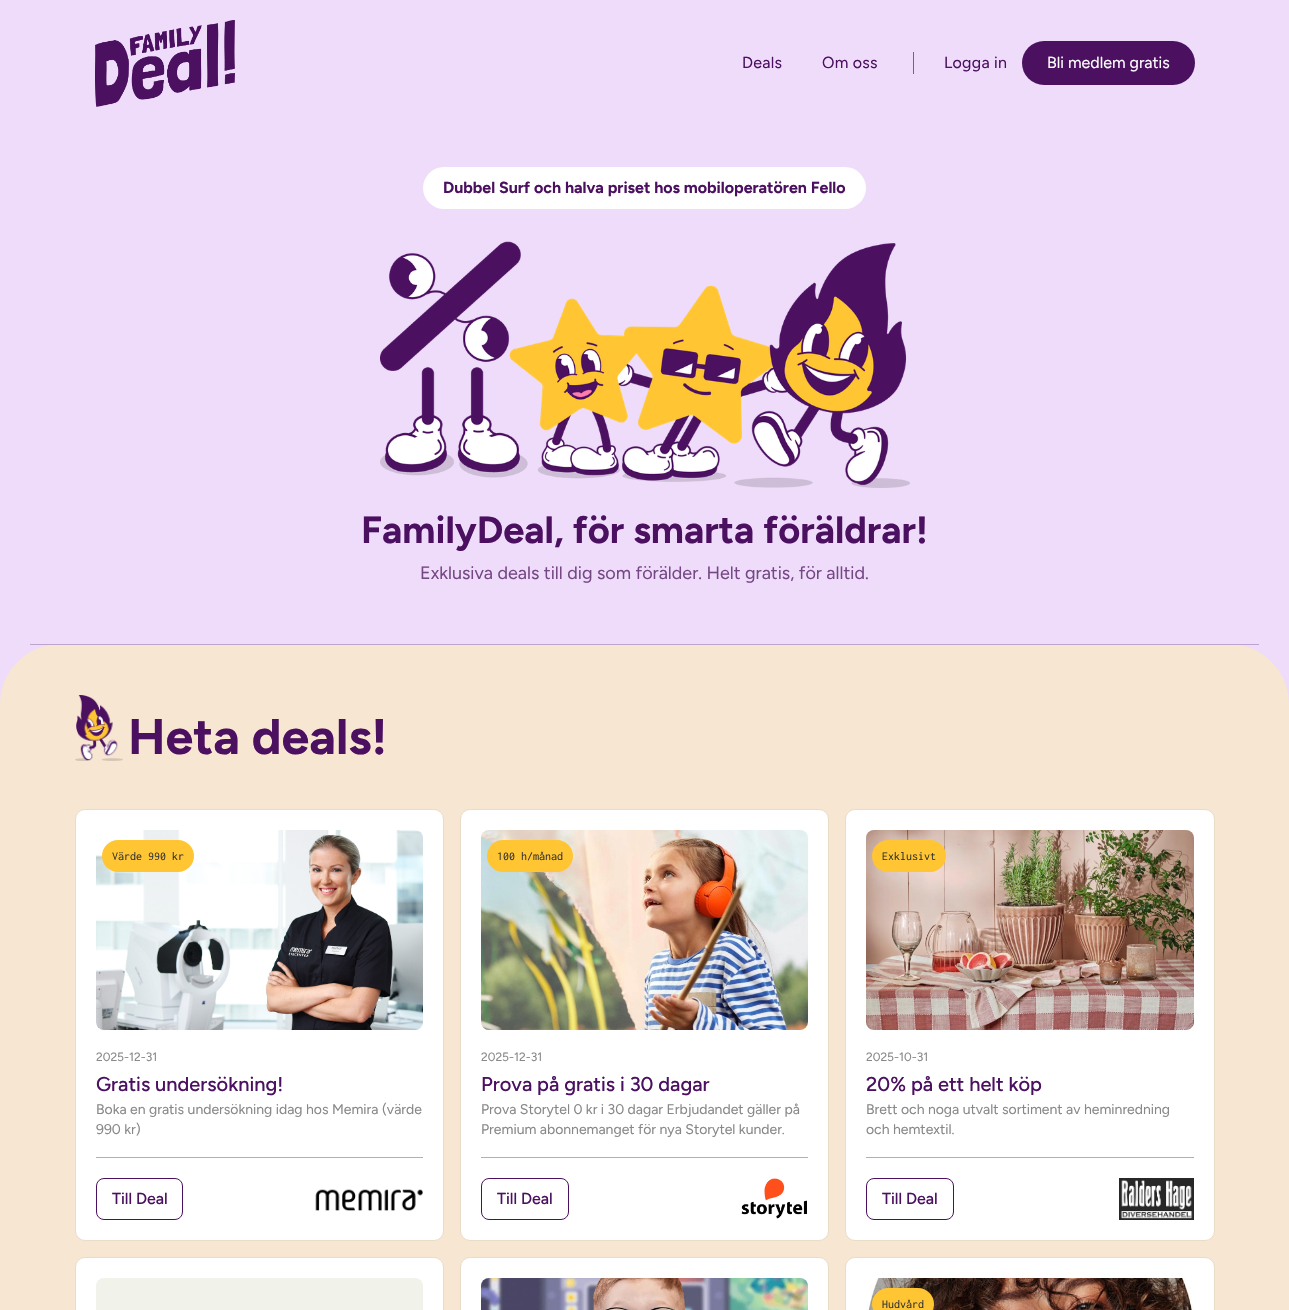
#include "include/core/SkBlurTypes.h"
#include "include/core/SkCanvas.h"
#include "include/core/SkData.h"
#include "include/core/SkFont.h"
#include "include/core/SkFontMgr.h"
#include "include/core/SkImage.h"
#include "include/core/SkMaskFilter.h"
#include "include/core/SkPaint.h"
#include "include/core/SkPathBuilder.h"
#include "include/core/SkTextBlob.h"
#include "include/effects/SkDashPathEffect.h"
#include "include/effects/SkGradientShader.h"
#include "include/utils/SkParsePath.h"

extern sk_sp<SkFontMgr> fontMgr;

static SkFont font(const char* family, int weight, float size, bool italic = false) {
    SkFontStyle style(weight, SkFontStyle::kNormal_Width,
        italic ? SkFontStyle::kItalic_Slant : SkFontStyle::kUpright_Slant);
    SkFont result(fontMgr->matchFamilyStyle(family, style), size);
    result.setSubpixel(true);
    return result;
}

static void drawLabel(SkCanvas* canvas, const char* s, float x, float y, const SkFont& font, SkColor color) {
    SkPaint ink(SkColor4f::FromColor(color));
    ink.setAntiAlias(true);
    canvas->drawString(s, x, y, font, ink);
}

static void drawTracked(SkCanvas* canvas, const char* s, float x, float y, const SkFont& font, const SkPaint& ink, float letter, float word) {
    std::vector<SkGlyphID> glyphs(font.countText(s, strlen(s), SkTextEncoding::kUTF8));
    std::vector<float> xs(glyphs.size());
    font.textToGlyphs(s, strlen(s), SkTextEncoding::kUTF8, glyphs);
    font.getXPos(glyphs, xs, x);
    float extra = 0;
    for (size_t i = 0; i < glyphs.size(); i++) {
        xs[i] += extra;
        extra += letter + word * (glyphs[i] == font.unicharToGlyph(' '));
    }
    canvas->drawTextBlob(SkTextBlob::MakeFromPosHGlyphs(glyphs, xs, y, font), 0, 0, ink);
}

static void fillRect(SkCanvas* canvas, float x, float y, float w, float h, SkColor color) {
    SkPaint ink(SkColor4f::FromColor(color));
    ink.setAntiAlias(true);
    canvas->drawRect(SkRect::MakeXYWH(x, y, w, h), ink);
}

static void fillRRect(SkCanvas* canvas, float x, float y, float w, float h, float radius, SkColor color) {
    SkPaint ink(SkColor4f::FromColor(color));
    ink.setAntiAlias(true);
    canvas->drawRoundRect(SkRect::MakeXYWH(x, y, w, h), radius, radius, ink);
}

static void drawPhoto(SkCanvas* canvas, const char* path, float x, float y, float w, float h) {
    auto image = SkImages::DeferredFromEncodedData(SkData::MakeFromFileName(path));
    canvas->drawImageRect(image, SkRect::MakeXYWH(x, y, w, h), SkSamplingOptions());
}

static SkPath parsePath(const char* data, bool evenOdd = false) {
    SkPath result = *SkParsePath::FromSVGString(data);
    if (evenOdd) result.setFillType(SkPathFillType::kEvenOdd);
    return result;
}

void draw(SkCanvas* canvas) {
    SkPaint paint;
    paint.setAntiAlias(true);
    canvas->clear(0xFFEFDCFA);
    drawPhoto(canvas, "assets/img1.png", 95, 20, 140, 87);
    SkFont font1 = font("Figtree", 400, 16);
    paint.setColor(0xFF4B1060);
    drawTracked(canvas, "Deals", 742, 68, font1, paint, 0.25f, 0);
    drawTracked(canvas, "Om oss", 822, 68, font1, paint, 0.25f, 0);
    fillRect(canvas, 913, 52, 1, 22, 0xFF716775);
    drawTracked(canvas, "Logga in", 944, 68, font1, paint, 0.25f, 0);
    fillRRect(canvas, 1022, 41, 173, 44, 22, 0xFF4B1060);
    drawLabel(canvas, "Bli medlem gratis", 1047, 68, font1, 0xFFFFFFFF);
    fillRRect(canvas, 423, 167, 443, 42, 21, 0xFFFFFFFF);
    SkFont font2 = font("Figtree", 700, 16);
    drawLabel(canvas, "Dubbel Surf och halva priset hos mobiloperatören Fello", 443, 193, font2, 0xFF4B1060);
    drawPhoto(canvas, "assets/img2.png", 380, 241, 530, 247);
    SkFont font3 = font("Figtree", 700, 38);
    drawLabel(canvas, "FamilyDeal, för smarta föräldrar!", 361, 543, font3, 0xFF4B1060);
    SkFont font4 = font("Figtree", 400, 18);
    drawLabel(canvas, "Exklusiva deals till dig som förälder. Helt gratis, för alltid.", 420, 579, font4, 0xFF754885);
    paint.setColor(0xFFF7E6D2);
    canvas->drawPath(parsePath("M60 644H1229C1262 644 1289 671 1289 704V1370H0V704C0 671 27 644 60 644Z"), paint);
    fillRect(canvas, 30, 644, 1229, 1, 0xFFBFA3CF);
    drawPhoto(canvas, "assets/img3.png", 75, 695, 48, 66);
    SkFont font5 = font("Figtree", 700, 50);
    drawLabel(canvas, "Heta deals!", 128, 754, font5, 0xFF4B1060);
    paint.setColor(0xFFFFFFFF);
    canvas->drawRoundRect(SkRect::MakeXYWH(75.5f, 809.5f, 368, 431), 9.5f, 9.5f, paint);
    paint.setStroke(true);
    paint.setStrokeWidth(1);
    paint.setColor(0xFFE9DDC8);
    canvas->drawRoundRect(SkRect::MakeXYWH(75.5f, 809.5f, 368, 431), 9.5f, 9.5f, paint);
    drawPhoto(canvas, "assets/img4.png", 96, 830, 327, 200);
    fillRRect(canvas, 102, 840, 92, 32, 16, 0xFFFFC532);
    SkFont font6 = font("Inconsolata", 400, 12);
    drawLabel(canvas, "Värde 990 kr", 112, 860, font6, 0xFF333333);
    SkFont font7 = font("Figtree", 400, 12);
    drawLabel(canvas, "2025-12-31", 96, 1061, font7, 0xFF888888);
    SkFont font8 = font("Figtree", 500, 20);
    drawLabel(canvas, "Gratis undersökning!", 96, 1091, font8, 0xFF4B1060);
    SkFont font9 = font("Figtree", 400, 14);
    drawLabel(canvas, "Boka en gratis undersökning idag hos Memira (värde", 96, 1114, font9, 0xFF888888);
    drawLabel(canvas, "990 kr)", 96, 1134, font9, 0xFF888888);
    fillRect(canvas, 96, 1157, 327, 1, 0xFFBFA3CF);
    paint.setColor(0xFF4B1060);
    canvas->drawRoundRect(SkRect::MakeXYWH(96.5f, 1178.5f, 86, 41), 7.5f, 7.5f, paint);
    SkFont font10 = font("Figtree", 500, 16);
    drawLabel(canvas, "Till Deal", 112, 1204, font10, 0xFF4B1060);
    drawPhoto(canvas, "assets/img5.png", 315, 1189, 108, 22);
    paint.setStroke(false);
    paint.setColor(0xFFFFFFFF);
    canvas->drawRoundRect(SkRect::MakeXYWH(460.5f, 809.5f, 368, 431), 9.5f, 9.5f, paint);
    paint.setStroke(true);
    paint.setColor(0xFFE9DDC8);
    canvas->drawRoundRect(SkRect::MakeXYWH(460.5f, 809.5f, 368, 431), 9.5f, 9.5f, paint);
    drawPhoto(canvas, "assets/img6.png", 481, 830, 327, 200);
    fillRRect(canvas, 487, 840, 86, 32, 16, 0xFFFFC532);
    drawLabel(canvas, "100 h/månad", 497, 860, font6, 0xFF333333);
    drawLabel(canvas, "2025-12-31", 481, 1061, font7, 0xFF888888);
    drawLabel(canvas, "Prova på gratis i 30 dagar", 481, 1091, font8, 0xFF4B1060);
    drawLabel(canvas, "Prova Storytel 0 kr i 30 dagar Erbjudandet gäller på", 481, 1114, font9, 0xFF888888);
    drawLabel(canvas, "Premium abonnemanget för nya Storytel kunder.", 481, 1134, font9, 0xFF888888);
    fillRect(canvas, 481, 1157, 327, 1, 0xFFBFA3CF);
    paint.setColor(0xFF4B1060);
    canvas->drawRoundRect(SkRect::MakeXYWH(481.5f, 1178.5f, 87, 41), 7.5f, 7.5f, paint);
    drawLabel(canvas, "Till Deal", 497, 1204, font10, 0xFF4B1060);
    drawPhoto(canvas, "assets/img7.png", 741, 1178, 66, 41);
    paint.setStroke(false);
    paint.setColor(0xFFFFFFFF);
    canvas->drawRoundRect(SkRect::MakeXYWH(845.5f, 809.5f, 369, 431), 9.5f, 9.5f, paint);
    paint.setStroke(true);
    paint.setColor(0xFFE9DDC8);
    canvas->drawRoundRect(SkRect::MakeXYWH(845.5f, 809.5f, 369, 431), 9.5f, 9.5f, paint);
    drawPhoto(canvas, "assets/img8.png", 866, 830, 328, 200);
    fillRRect(canvas, 872, 840, 74, 32, 16, 0xFFFFC532);
    drawLabel(canvas, "Exklusivt", 882, 860, font6, 0xFF333333);
    drawLabel(canvas, "2025-10-31", 866, 1061, font7, 0xFF888888);
    drawLabel(canvas, "20% på ett helt köp", 866, 1091, font8, 0xFF4B1060);
    drawLabel(canvas, "Brett och noga utvalt sortiment av heminredning", 866, 1114, font9, 0xFF888888);
    drawLabel(canvas, "och hemtextil.", 866, 1134, font9, 0xFF888888);
    fillRect(canvas, 866, 1157, 328, 1, 0xFFBFA3CF);
    paint.setColor(0xFF4B1060);
    canvas->drawRoundRect(SkRect::MakeXYWH(866.5f, 1178.5f, 87, 41), 7.5f, 7.5f, paint);
    drawLabel(canvas, "Till Deal", 882, 1204, font10, 0xFF4B1060);
    drawPhoto(canvas, "assets/img9.png", 1119, 1178, 75, 42);
    paint.setStroke(false);
    paint.setColor(0xFFFFFFFF);
    canvas->drawRoundRect(SkRect::MakeXYWH(75.5f, 1257.5f, 368, 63), 9.5f, 9.5f, paint);
    paint.setStroke(true);
    paint.setColor(0xFFE9DDC8);
    canvas->drawRoundRect(SkRect::MakeXYWH(75.5f, 1257.5f, 368, 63), 9.5f, 9.5f, paint);
    drawPhoto(canvas, "assets/img10.png", 96, 1278, 327, 32);
    paint.setStroke(false);
    paint.setColor(0xFFFFFFFF);
    canvas->drawRoundRect(SkRect::MakeXYWH(460.5f, 1257.5f, 368, 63), 9.5f, 9.5f, paint);
    paint.setStroke(true);
    paint.setColor(0xFFE9DDC8);
    canvas->drawRoundRect(SkRect::MakeXYWH(460.5f, 1257.5f, 368, 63), 9.5f, 9.5f, paint);
    drawPhoto(canvas, "assets/img11.png", 481, 1278, 327, 32);
    paint.setStroke(false);
    paint.setColor(0xFFFFFFFF);
    canvas->drawRoundRect(SkRect::MakeXYWH(845.5f, 1257.5f, 369, 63), 9.5f, 9.5f, paint);
    paint.setStroke(true);
    paint.setColor(0xFFE9DDC8);
    canvas->drawRoundRect(SkRect::MakeXYWH(845.5f, 1257.5f, 369, 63), 9.5f, 9.5f, paint);
    drawPhoto(canvas, "assets/img12.png", 866, 1278, 328, 32);
    fillRRect(canvas, 872, 1288, 62, 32, 16, 0xFFFFC532);
    drawLabel(canvas, "Hudvård", 882, 1308, font6, 0xFF333333);
}
